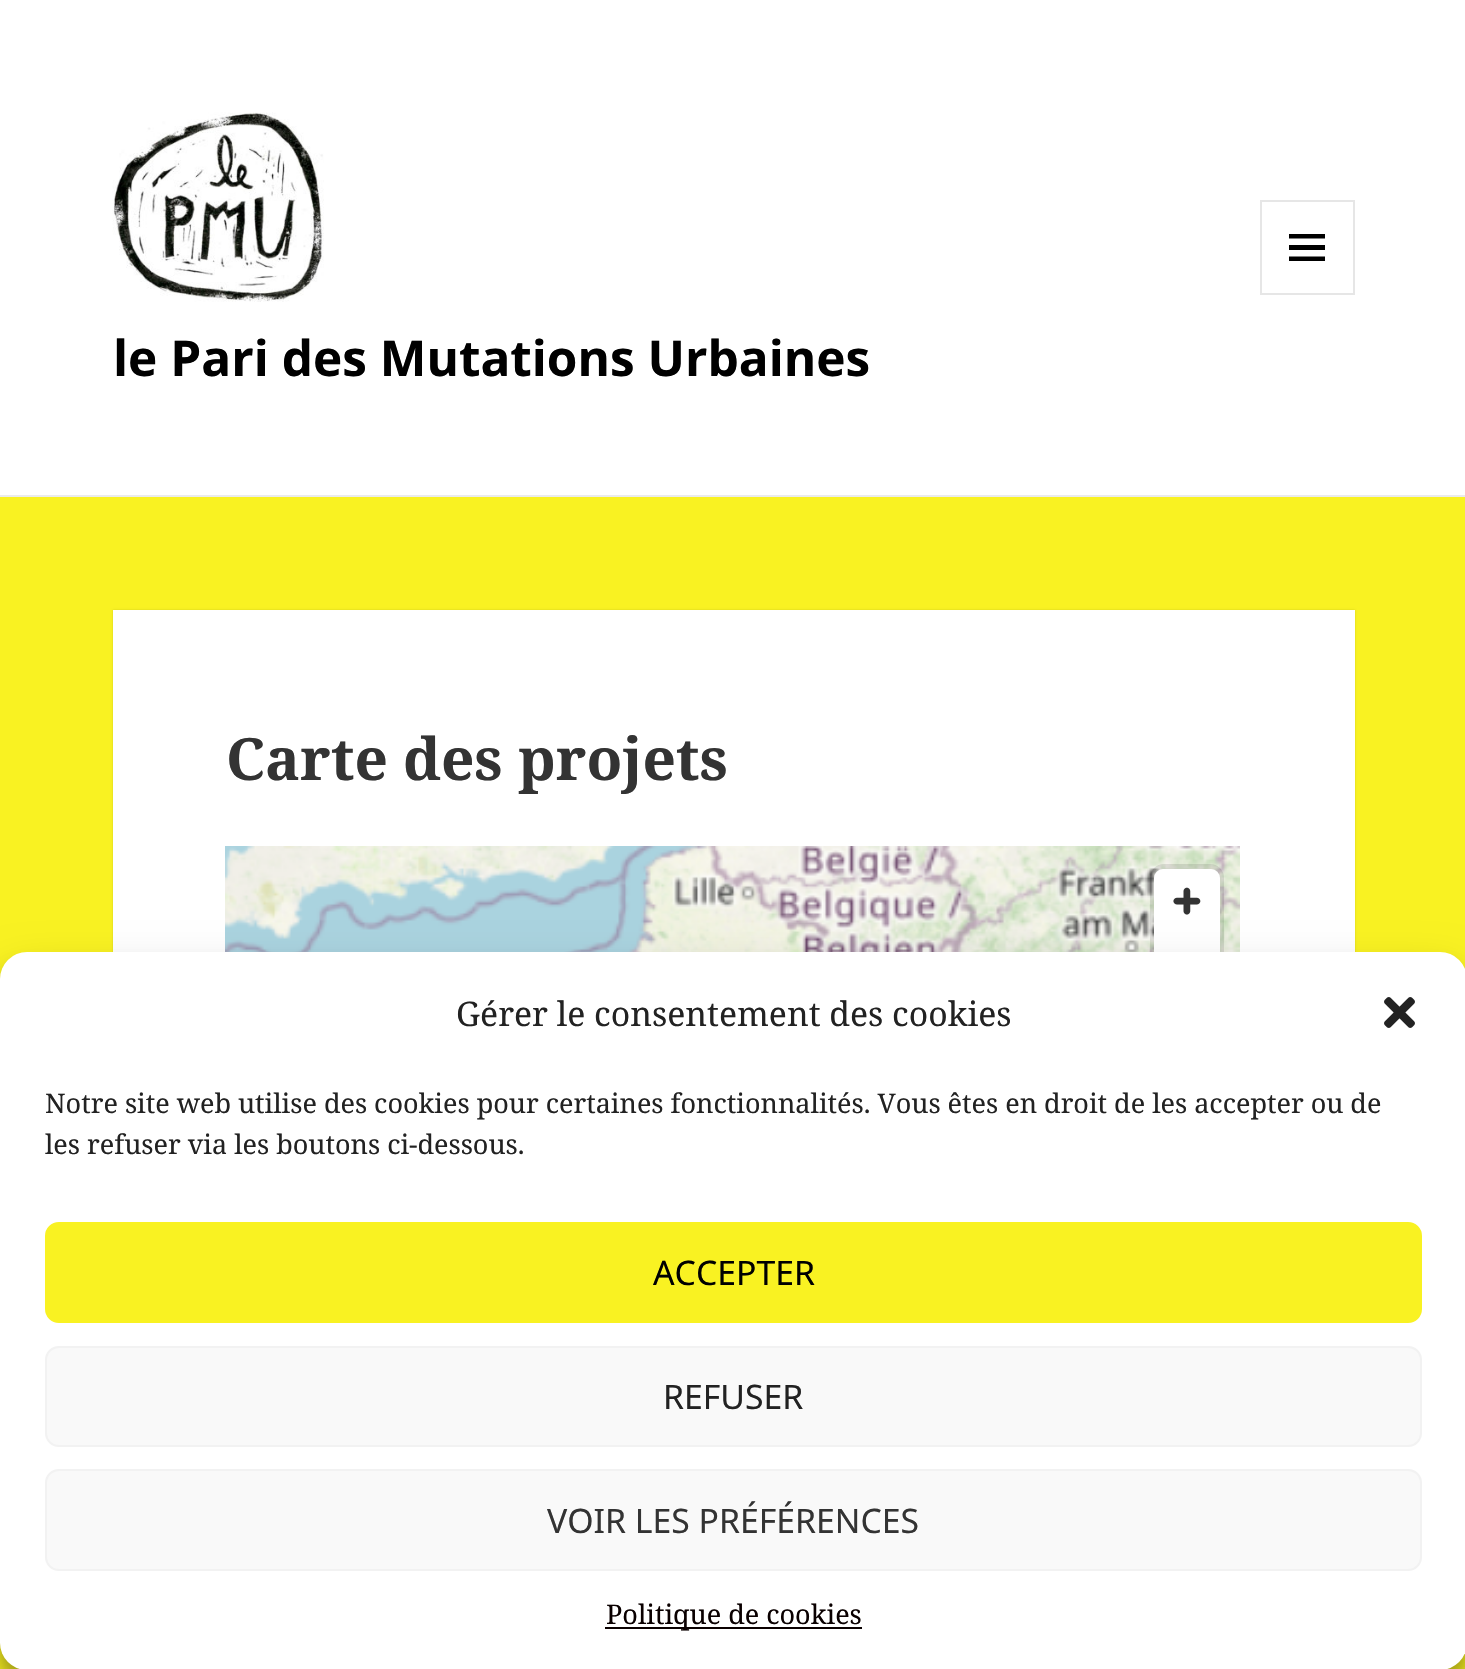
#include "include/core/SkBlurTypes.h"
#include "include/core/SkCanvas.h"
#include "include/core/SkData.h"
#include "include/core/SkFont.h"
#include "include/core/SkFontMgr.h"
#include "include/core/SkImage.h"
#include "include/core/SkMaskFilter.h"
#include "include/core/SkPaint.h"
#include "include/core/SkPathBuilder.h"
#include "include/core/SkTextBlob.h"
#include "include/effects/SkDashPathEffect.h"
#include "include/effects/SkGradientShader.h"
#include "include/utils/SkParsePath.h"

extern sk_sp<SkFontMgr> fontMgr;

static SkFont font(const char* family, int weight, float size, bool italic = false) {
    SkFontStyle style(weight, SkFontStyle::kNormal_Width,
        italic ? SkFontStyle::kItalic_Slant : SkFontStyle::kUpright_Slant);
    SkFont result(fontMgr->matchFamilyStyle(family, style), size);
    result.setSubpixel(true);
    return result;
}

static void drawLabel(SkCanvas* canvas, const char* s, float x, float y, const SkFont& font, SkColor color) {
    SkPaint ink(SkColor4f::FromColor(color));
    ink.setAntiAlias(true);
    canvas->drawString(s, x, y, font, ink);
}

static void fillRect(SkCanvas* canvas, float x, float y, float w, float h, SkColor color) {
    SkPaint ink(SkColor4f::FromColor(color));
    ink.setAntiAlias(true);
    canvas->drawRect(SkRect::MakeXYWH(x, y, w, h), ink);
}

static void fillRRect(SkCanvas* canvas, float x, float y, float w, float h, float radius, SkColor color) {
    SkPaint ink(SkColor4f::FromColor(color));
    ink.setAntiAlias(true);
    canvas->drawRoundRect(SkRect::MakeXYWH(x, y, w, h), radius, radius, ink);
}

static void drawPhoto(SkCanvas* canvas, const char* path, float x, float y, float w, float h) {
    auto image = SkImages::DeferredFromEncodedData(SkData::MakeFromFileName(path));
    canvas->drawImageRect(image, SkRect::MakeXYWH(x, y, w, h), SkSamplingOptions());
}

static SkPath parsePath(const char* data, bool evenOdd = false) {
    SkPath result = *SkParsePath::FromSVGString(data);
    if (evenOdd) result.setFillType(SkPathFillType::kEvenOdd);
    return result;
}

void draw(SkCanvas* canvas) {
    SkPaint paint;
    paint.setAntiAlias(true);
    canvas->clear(0xFFF9F222);
    fillRect(canvas, 0, 0, 1465, 495, 0xFFFFFFFF);
    fillRect(canvas, 0, 495, 1465, 2, 0xFFEBEBEB);
    drawPhoto(canvas, "assets/img1.png", 112, 112, 212, 190);
    paint.setStroke(true);
    paint.setStrokeWidth(2);
    paint.setColor(0xFFE6E6E6);
    canvas->drawRect(SkRect::MakeXYWH(1261, 201, 93, 93), paint);
    paint.setStroke(false);
    paint.setColor(0xFF000000);
    canvas->drawPath(parsePath("M1289 261V256.5H1325V261ZM1289 234H1325V238.5H1289ZM1289 250V245H1325V250Z"), paint);
    SkFont font1 = font("Noto Sans", 700, 49.5f);
    drawLabel(canvas, "le Pari des Mutations Urbaines", 113, 376, font1, 0xFF000000);
    paint.setColor(0x26000000);
    paint.setMaskFilter(SkMaskFilter::MakeBlur(kNormal_SkBlurStyle, 1));
    canvas->drawRect(SkRect::MakeXYWH(113, 610, 1242, 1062), paint);
    paint.setMaskFilter(nullptr);
    fillRect(canvas, 113, 610, 1242, 342, 0xFFFFFFFF);
    SkFont font2 = font("Noto Serif", 700, 58.5f);
    drawLabel(canvas, "Carte des projets", 226, 780, font2, 0xFF333333);
    drawPhoto(canvas, "assets/img2.png", 225, 846, 1015, 106);
    paint.setStroke(true);
    paint.setStrokeWidth(5);
    paint.setColor(0x1A000000);
    canvas->drawRoundRect(SkRect::MakeXYWH(1152.5f, 866.5f, 69, 200), 11.5f, 11.5f, paint);
    fillRRect(canvas, 1154, 869, 66, 195, 9, 0xFFFFFFFF);
    drawPhoto(canvas, "assets/img3.png", 1173, 887, 28, 28);
    paint.setStroke(false);
    paint.setColor(0x3B000000);
    paint.setMaskFilter(SkMaskFilter::MakeBlur(kNormal_SkBlurStyle, 7));
    canvas->drawRoundRect(SkRect::MakeXYWH(0, 965, 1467, 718), 27, 27, paint);
    paint.setMaskFilter(nullptr);
    paint.setColor(0x30000000);
    paint.setMaskFilter(SkMaskFilter::MakeBlur(kNormal_SkBlurStyle, 22.5f));
    canvas->drawRoundRect(SkRect::MakeXYWH(0, 974, 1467, 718), 27, 27, paint);
    paint.setMaskFilter(nullptr);
    fillRRect(canvas, 0, 952, 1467, 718, 27, 0xFFFFFFFF);
    SkFont font3 = font("Noto Serif", 400, 33.75f);
    drawLabel(canvas, "Gérer le consentement des cookies", 456, 1026, font3, 0xFF222222);
    drawPhoto(canvas, "assets/img4.png", 1384, 997, 31, 31);
    SkFont font4 = font("Noto Serif", 400, 27);
    drawLabel(canvas, "Notre site web utilise des cookies pour certaines fonctionnalités. Vous êtes en droit de les accepter ou de", 45, 1113, font4, 0xFF222222);
    drawLabel(canvas, "les refuser via les boutons ci-dessous.", 45, 1154, font4, 0xFF222222);
    paint.setColor(0xFFF9F222);
    canvas->drawRoundRect(SkRect::MakeXYWH(46, 1223, 1375, 99), 13, 13, paint);
    paint.setStroke(true);
    paint.setStrokeWidth(2);
    canvas->drawRoundRect(SkRect::MakeXYWH(46, 1223, 1375, 99), 13, 13, paint);
    SkFont font5 = font("Noto Sans", 400, 33.75f);
    drawLabel(canvas, "ACCEPTER", 653, 1285, font5, 0xFF000000);
    paint.setStroke(false);
    paint.setColor(0xFFF9F9F9);
    canvas->drawRoundRect(SkRect::MakeXYWH(46, 1347, 1375, 99), 13, 13, paint);
    paint.setStroke(true);
    paint.setColor(0xFFF2F2F2);
    canvas->drawRoundRect(SkRect::MakeXYWH(46, 1347, 1375, 99), 13, 13, paint);
    drawLabel(canvas, "REFUSER", 663, 1409, font5, 0xFF222222);
    paint.setStroke(false);
    paint.setColor(0xFFF9F9F9);
    canvas->drawRoundRect(SkRect::MakeXYWH(46, 1470, 1375, 100), 13, 13, paint);
    paint.setStroke(true);
    paint.setColor(0xFFF2F2F2);
    canvas->drawRoundRect(SkRect::MakeXYWH(46, 1470, 1375, 100), 13, 13, paint);
    drawLabel(canvas, "VOIR LES PRÉFÉRENCES", 547, 1533, font5, 0xFF333333);
    fillRect(canvas, 605, 1627, 257, 2, 0xFF0A0000);
    drawLabel(canvas, "Politique de cookies", 606, 1624, font4, 0xFF0A0000);
}
